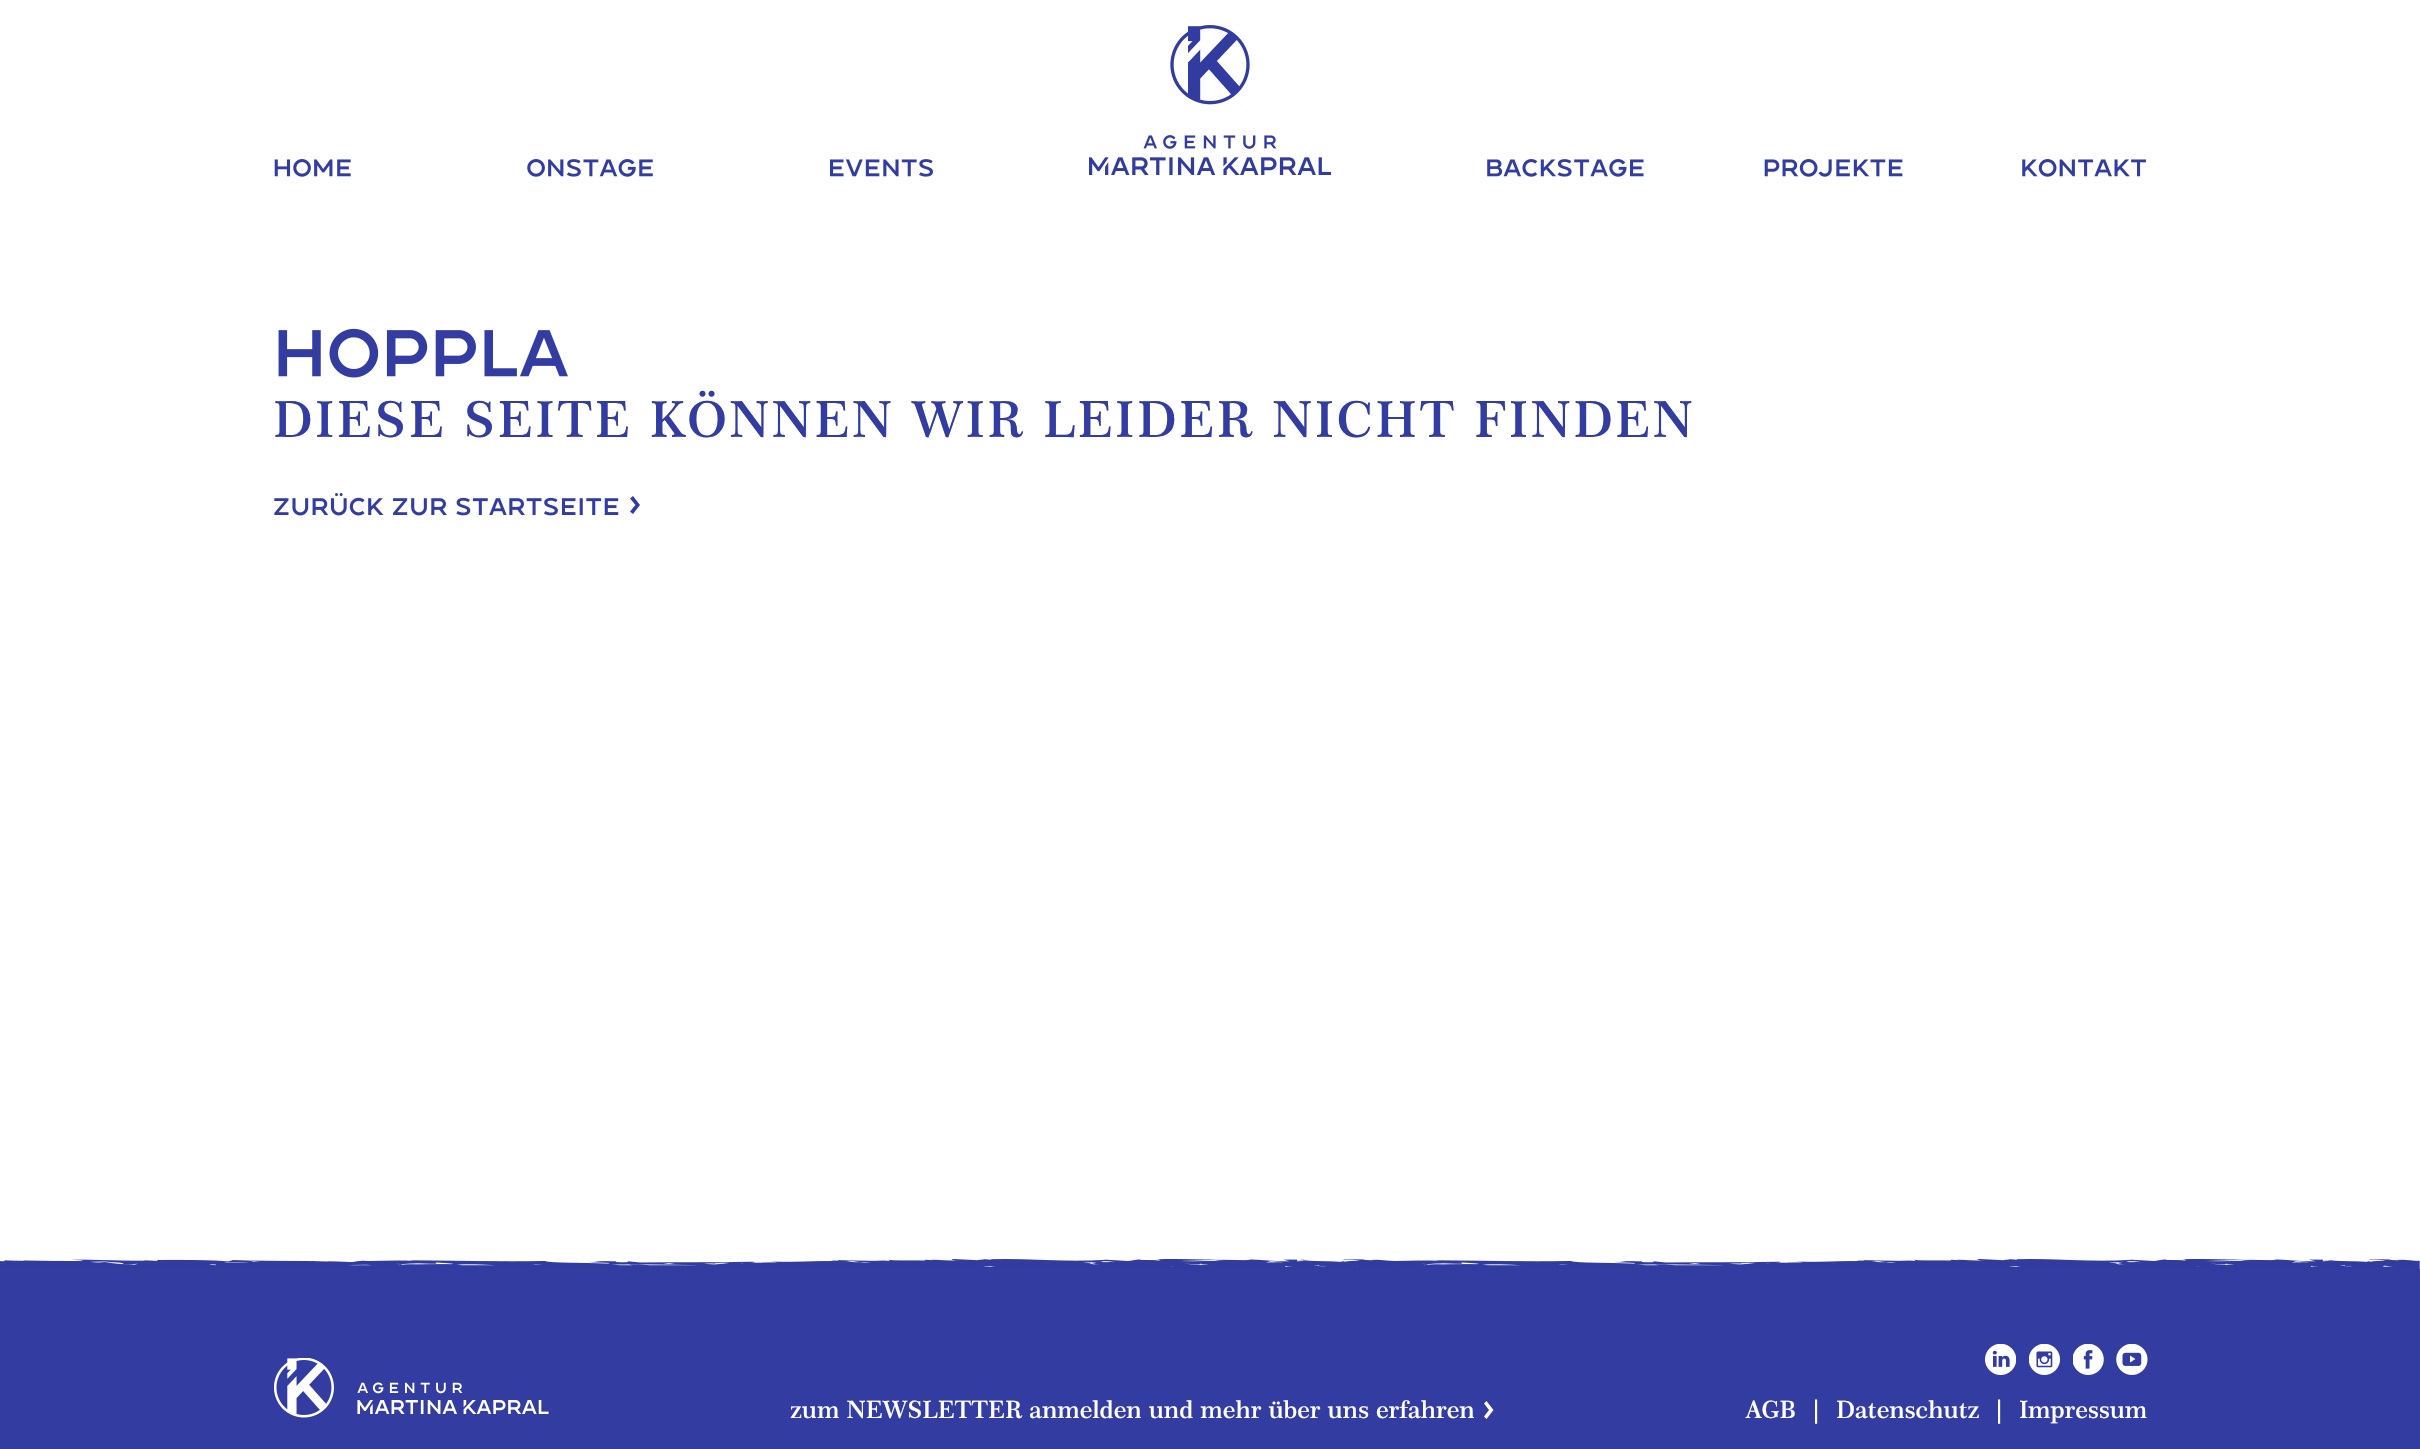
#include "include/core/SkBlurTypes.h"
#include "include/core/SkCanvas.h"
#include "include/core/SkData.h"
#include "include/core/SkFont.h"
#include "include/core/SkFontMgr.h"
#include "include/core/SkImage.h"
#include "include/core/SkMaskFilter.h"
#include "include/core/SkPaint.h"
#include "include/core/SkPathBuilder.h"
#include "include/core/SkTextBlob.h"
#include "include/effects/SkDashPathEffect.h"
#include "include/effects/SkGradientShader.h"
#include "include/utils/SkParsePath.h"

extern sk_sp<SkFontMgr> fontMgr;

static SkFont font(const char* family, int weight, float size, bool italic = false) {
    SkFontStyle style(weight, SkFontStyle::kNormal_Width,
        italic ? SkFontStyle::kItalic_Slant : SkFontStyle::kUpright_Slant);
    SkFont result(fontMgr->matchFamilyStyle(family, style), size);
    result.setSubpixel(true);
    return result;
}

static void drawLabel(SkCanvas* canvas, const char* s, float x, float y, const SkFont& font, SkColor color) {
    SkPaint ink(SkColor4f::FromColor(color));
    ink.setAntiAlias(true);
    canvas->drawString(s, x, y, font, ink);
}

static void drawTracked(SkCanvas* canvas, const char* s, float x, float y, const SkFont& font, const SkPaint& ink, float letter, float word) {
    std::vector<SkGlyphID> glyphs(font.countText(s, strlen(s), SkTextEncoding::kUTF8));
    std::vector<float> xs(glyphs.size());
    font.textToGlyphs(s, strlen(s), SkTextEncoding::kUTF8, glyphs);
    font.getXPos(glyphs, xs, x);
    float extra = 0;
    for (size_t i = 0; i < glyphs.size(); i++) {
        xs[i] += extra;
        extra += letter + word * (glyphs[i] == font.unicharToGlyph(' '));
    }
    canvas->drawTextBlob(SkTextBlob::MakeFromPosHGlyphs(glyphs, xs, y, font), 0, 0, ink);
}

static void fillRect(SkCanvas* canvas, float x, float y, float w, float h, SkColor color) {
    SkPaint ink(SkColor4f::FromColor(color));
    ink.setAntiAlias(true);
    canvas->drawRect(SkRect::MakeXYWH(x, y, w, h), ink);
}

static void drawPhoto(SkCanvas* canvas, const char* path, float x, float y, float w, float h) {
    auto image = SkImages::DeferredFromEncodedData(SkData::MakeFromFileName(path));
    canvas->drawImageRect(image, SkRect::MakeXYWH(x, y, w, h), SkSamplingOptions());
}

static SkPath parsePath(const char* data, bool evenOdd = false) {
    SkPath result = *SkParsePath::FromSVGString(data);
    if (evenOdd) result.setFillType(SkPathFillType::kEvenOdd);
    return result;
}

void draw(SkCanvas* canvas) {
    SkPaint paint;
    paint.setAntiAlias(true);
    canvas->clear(0xFFFFFFFF);
    drawPhoto(canvas, "assets/img1.png", 274, 159, 77, 18);
    drawPhoto(canvas, "assets/img2.png", 527, 159, 126, 18);
    drawPhoto(canvas, "assets/img3.png", 830, 159, 103, 18);
    drawPhoto(canvas, "assets/img4.png", 1089, 25, 242, 150);
    drawPhoto(canvas, "assets/img5.png", 1487, 159, 157, 18);
    drawPhoto(canvas, "assets/img6.png", 1764, 159, 139, 18);
    drawPhoto(canvas, "assets/img7.png", 2022, 159, 124, 18);
    drawPhoto(canvas, "assets/img8.png", 278, 328, 290, 50);
    SkFont font1 = font("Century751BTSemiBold", 600, 50);
    paint.setColor(0xFF333DA1);
    drawTracked(canvas, "DIESE SEITE KÖNNEN WIR LEIDER NICHT FINDEN", 273, 437, font1, paint, 2.5f, 0);
    drawPhoto(canvas, "assets/img9.png", 274, 493, 345, 23);
    paint.setColor(0xFF323CA0);
    canvas->drawPath(parsePath("M633 496L630 498.5L635.5 505L630 511.5L633 514L640 505Z"), paint);
    drawPhoto(canvas, "assets/img10.png", 0, 1259, 2420, 10);
    fillRect(canvas, 0, 1269, 2420, 180, 0xFF333DA1);
    drawPhoto(canvas, "assets/img11.png", 274, 1358, 275, 60);
    SkFont font2 = font("Century751BTSemiBold", 600, 24);
    drawLabel(canvas, "zum NEWSLETTER anmelden und mehr über uns erfahren", 790, 1418, font2, 0xFFFFFFFF);
    paint.setColor(0xFFFFFFFF);
    canvas->drawPath(parsePath("M1486.5 1401L1484 1403.5L1489 1410L1484 1416.5L1486.5 1419L1493.5 1410Z"), paint);
    drawPhoto(canvas, "assets/img12.png", 1985, 1344, 31, 31);
    drawPhoto(canvas, "assets/img13.png", 2029, 1344, 31, 31);
    drawPhoto(canvas, "assets/img14.png", 2073, 1344, 31, 31);
    drawPhoto(canvas, "assets/img15.png", 2116, 1344, 32, 31);
    drawLabel(canvas, "AGB", 1746, 1418, font2, 0xFFFFFFFF);
    drawLabel(canvas, "|", 1810, 1418, font2, 0xFFFFFFFF);
    drawLabel(canvas, "Datenschutz", 1836, 1418, font2, 0xFFFFFFFF);
    drawLabel(canvas, "|", 1993, 1418, font2, 0xFFFFFFFF);
    drawLabel(canvas, "Impressum", 2019, 1418, font2, 0xFFFFFFFF);
}
